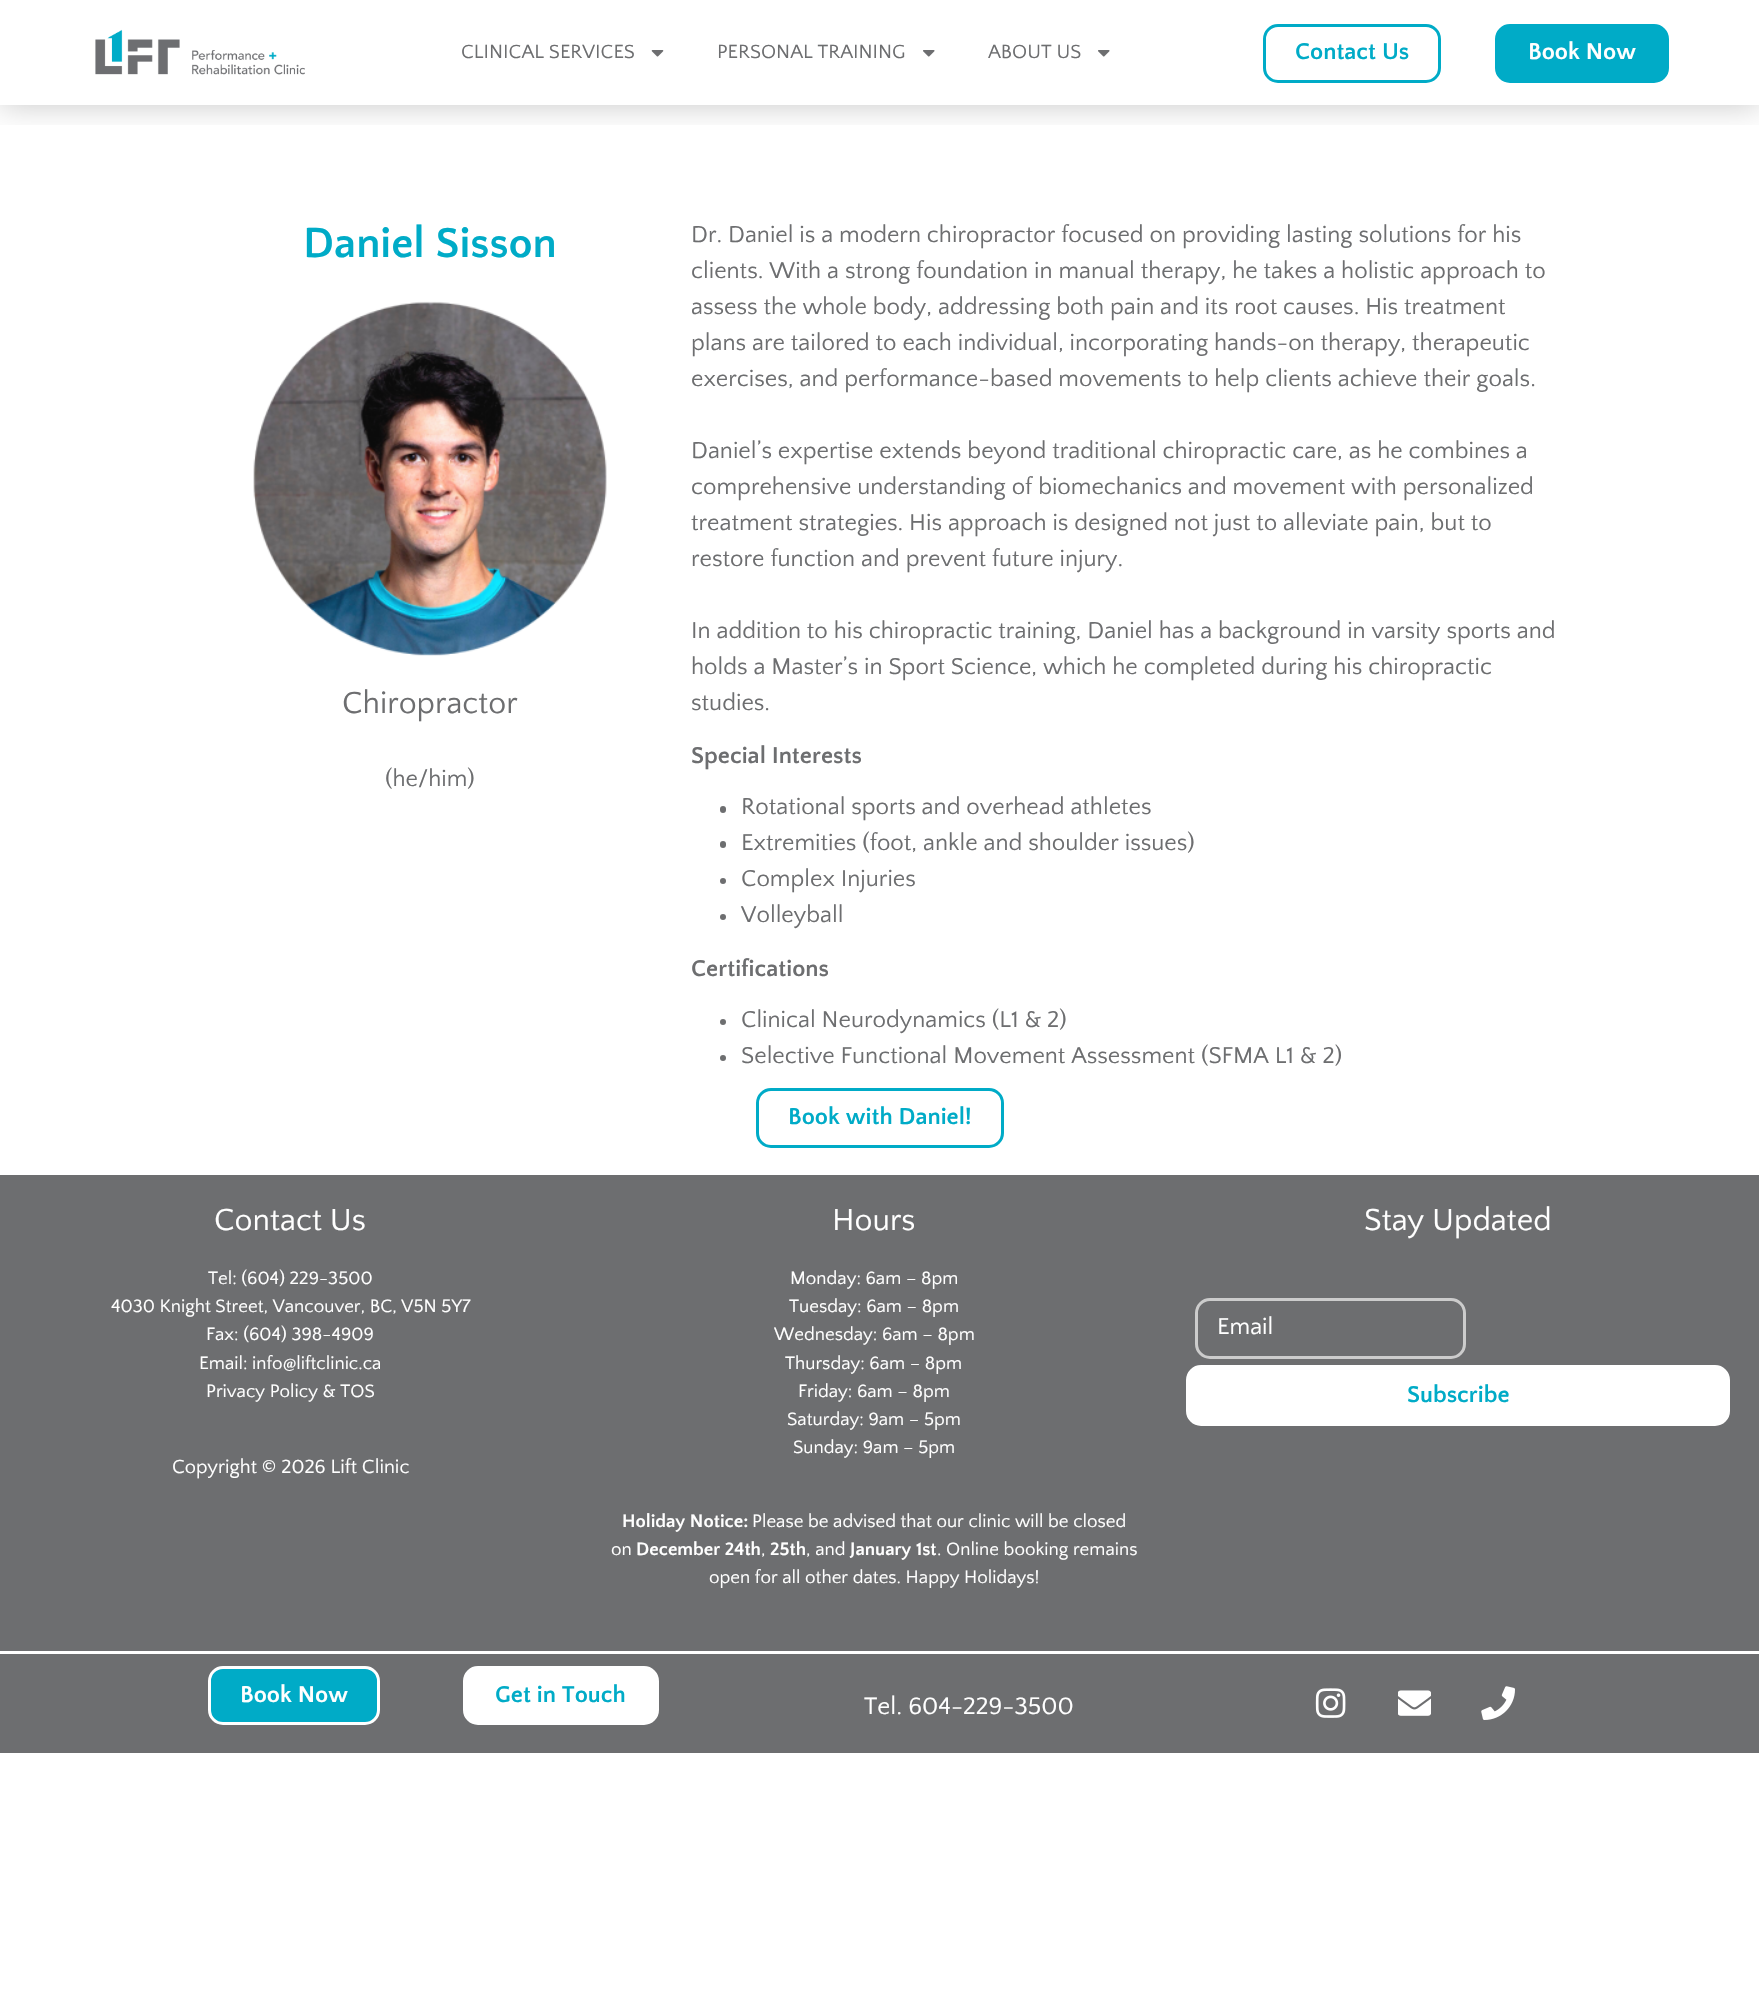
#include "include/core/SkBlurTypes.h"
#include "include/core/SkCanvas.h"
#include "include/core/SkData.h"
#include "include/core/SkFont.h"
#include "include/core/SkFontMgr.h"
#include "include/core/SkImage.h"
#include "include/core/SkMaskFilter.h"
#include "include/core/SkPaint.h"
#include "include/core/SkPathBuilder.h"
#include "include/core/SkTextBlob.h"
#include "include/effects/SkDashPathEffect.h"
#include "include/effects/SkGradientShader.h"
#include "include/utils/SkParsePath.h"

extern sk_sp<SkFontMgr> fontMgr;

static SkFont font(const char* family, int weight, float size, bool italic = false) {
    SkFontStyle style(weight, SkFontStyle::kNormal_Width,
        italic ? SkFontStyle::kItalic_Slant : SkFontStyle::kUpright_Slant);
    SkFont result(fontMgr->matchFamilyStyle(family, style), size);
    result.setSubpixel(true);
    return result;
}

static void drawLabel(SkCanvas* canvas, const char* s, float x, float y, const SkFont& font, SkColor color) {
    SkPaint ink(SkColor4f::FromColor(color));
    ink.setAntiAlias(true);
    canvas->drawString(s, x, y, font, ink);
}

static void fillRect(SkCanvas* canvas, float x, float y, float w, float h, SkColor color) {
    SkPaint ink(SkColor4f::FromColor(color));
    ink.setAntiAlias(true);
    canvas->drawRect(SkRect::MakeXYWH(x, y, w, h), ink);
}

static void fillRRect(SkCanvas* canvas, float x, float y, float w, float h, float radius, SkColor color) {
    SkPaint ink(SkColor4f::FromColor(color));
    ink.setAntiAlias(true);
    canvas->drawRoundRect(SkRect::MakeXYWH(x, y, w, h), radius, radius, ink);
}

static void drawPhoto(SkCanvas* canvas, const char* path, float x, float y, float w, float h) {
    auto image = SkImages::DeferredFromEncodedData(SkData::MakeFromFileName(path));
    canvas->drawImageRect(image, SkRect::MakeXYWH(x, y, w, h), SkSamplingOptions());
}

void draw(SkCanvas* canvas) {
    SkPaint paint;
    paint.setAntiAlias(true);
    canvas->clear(0xFFFFFFFF);
    canvas->save();
    canvas->clipRect(SkRect::MakeXYWH(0, 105, 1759, 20));
    paint.setColor(0x38000000);
    paint.setMaskFilter(SkMaskFilter::MakeBlur(kNormal_SkBlurStyle, 15));
    canvas->drawRect(SkRect::MakeXYWH(0, 0, 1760, 105), paint);
    paint.setMaskFilter(nullptr);
    canvas->restore();
    drawPhoto(canvas, "assets/img1.png", 95, 29, 210, 46);
    SkFont font1 = font("Quattrocento Sans", 400, 20);
    drawLabel(canvas, "CLINICAL SERVICES", 461, 58, font1, 0xFF6D6E70);
    drawPhoto(canvas, "assets/img2.png", 651, 50, 13, 7);
    drawLabel(canvas, "PERSONAL TRAINING", 717, 58, font1, 0xFF6D6E70);
    drawPhoto(canvas, "assets/img3.png", 923, 50, 12, 7);
    drawLabel(canvas, "ABOUT US", 988, 58, font1, 0xFF6D6E70);
    drawPhoto(canvas, "assets/img3.png", 1098, 50, 12, 7);
    paint.setStroke(true);
    paint.setStrokeWidth(3);
    paint.setColor(0xFF00ABC7);
    canvas->drawRoundRect(SkRect::MakeXYWH(1264.5f, 25.5f, 175, 56), 13.5f, 13.5f, paint);
    SkFont font2 = font("Quattrocento Sans", 700, 24);
    drawLabel(canvas, "Contact Us", 1295, 59, font2, 0xFF00ABC7);
    paint.setStroke(false);
    canvas->drawRoundRect(SkRect::MakeXYWH(1496.5f, 25.5f, 171, 56), 13.5f, 13.5f, paint);
    paint.setStroke(true);
    canvas->drawRoundRect(SkRect::MakeXYWH(1496.5f, 25.5f, 171, 56), 13.5f, 13.5f, paint);
    drawLabel(canvas, "Book Now", 1528, 59, font2, 0xFFFFFFFF);
    SkFont font3 = font("Quattrocento Sans", 700, 44);
    drawLabel(canvas, "Daniel Sisson", 303, 257, font3, 0xFF00ABC7);
    drawPhoto(canvas, "assets/img4.png", 253, 301, 354, 355);
    SkFont font4 = font("Quattrocento Sans", 400, 32);
    drawLabel(canvas, "Chiropractor", 342, 713, font4, 0xFF6D6E70);
    SkFont font5 = font("Quattrocento Sans", 400, 24);
    drawLabel(canvas, "(he/him)", 385, 786, font5, 0xFF6D6E70);
    drawLabel(canvas, "Dr. Daniel is a modern chiropractor focused on providing lasting solutions for his", 691, 242, font5, 0xFF6D6E70);
    drawLabel(canvas, "clients. With a strong foundation in manual therapy, he takes a holistic approach to", 691, 278, font5, 0xFF6D6E70);
    drawLabel(canvas, "assess the whole body, addressing both pain and its root causes. His treatment", 691, 314, font5, 0xFF6D6E70);
    drawLabel(canvas, "plans are tailored to each individual, incorporating hands-on therapy, therapeutic", 691, 350, font5, 0xFF6D6E70);
    drawLabel(canvas, "exercises, and performance-based movements to help clients achieve their goals.", 691, 386, font5, 0xFF6D6E70);
    drawLabel(canvas, "Daniel’s expertise extends beyond traditional chiropractic care, as he combines a", 691, 458, font5, 0xFF6D6E70);
    drawLabel(canvas, "comprehensive understanding of biomechanics and movement with personalized", 691, 494, font5, 0xFF6D6E70);
    drawLabel(canvas, "treatment strategies. His approach is designed not just to alleviate pain, but to", 691, 530, font5, 0xFF6D6E70);
    drawLabel(canvas, "restore function and prevent future injury.", 691, 566, font5, 0xFF6D6E70);
    drawLabel(canvas, "In addition to his chiropractic training, Daniel has a background in varsity sports and", 691, 638, font5, 0xFF6D6E70);
    drawLabel(canvas, "holds a Master’s in Sport Science, which he completed during his chiropractic", 691, 674, font5, 0xFF6D6E70);
    drawLabel(canvas, "studies.", 691, 710, font5, 0xFF6D6E70);
    drawLabel(canvas, "Special Interests", 691, 763, font2, 0xFF6D6E70);
    fillRRect(canvas, 720, 806, 6, 7, 3, 0xFF6D6E70);
    drawLabel(canvas, "Rotational sports and overhead athletes", 741, 814, font5, 0xFF6D6E70);
    fillRRect(canvas, 720, 841, 6, 7, 3, 0xFF6D6E70);
    drawLabel(canvas, "Extremities (foot, ankle and shoulder issues)", 741, 850, font5, 0xFF6D6E70);
    paint.setStroke(false);
    paint.setColor(0xFF6D6E70);
    canvas->drawCircle(723, 881, 3, paint);
    drawLabel(canvas, "Complex Injuries", 741, 886, font5, 0xFF6D6E70);
    canvas->drawCircle(723, 917, 3, paint);
    drawLabel(canvas, "Volleyball", 741, 922, font5, 0xFF6D6E70);
    drawLabel(canvas, "Certifications", 691, 976, font2, 0xFF6D6E70);
    canvas->drawCircle(723, 1022, 3, paint);
    drawLabel(canvas, "Clinical Neurodynamics (L1 & 2)", 741, 1027, font5, 0xFF6D6E70);
    canvas->drawCircle(723, 1058, 3, paint);
    drawLabel(canvas, "Selective Functional Movement Assessment (SFMA L1 & 2)", 741, 1063, font5, 0xFF6D6E70);
    paint.setStroke(true);
    paint.setColor(0xFF00ABC7);
    canvas->drawRoundRect(SkRect::MakeXYWH(757.5f, 1089.5f, 245, 57), 13.5f, 13.5f, paint);
    drawLabel(canvas, "Book with Daniel!", 788, 1124, font2, 0xFF00ABC7);
    fillRect(canvas, 0, 1175, 1759, 476, 0xFF6D6E70);
    drawLabel(canvas, "Contact Us", 214, 1230, font4, 0xFFFFFFFF);
    SkFont font6 = font("Quattrocento Sans", 400, 18.75f);
    drawLabel(canvas, "Tel: (604) 229-3500", 208, 1284, font6, 0xFFFFFFFF);
    drawLabel(canvas, "4030 Knight Street, Vancouver, BC, V5N 5Y7", 111, 1312, font6, 0xFFFFFFFF);
    drawLabel(canvas, "Fax: (604) 398-4909", 206, 1340, font6, 0xFFFFFFFF);
    drawLabel(canvas, "Email: info@liftclinic.ca", 199, 1369, font6, 0xFFFFFFFF);
    drawLabel(canvas, "Privacy Policy & TOS", 206, 1397, font6, 0xFFFFFFFF);
    drawLabel(canvas, "Copyright © 2026 Lift Clinic", 172, 1473, font1, 0xFFFFFFFF);
    drawLabel(canvas, "Hours", 832, 1230, font4, 0xFFFFFFFF);
    drawLabel(canvas, "Monday: 6am – 8pm", 790, 1284, font6, 0xFFFFFFFF);
    drawLabel(canvas, "Tuesday: 6am – 8pm", 789, 1312, font6, 0xFFFFFFFF);
    drawLabel(canvas, "Wednesday: 6am – 8pm", 774, 1340, font6, 0xFFFFFFFF);
    drawLabel(canvas, "Thursday: 6am – 8pm", 785, 1369, font6, 0xFFFFFFFF);
    drawLabel(canvas, "Friday: 6am – 8pm", 798, 1397, font6, 0xFFFFFFFF);
    drawLabel(canvas, "Saturday: 9am – 5pm", 787, 1425, font6, 0xFFFFFFFF);
    drawLabel(canvas, "Sunday: 9am – 5pm", 793, 1453, font6, 0xFFFFFFFF);
    SkFont font7 = font("Quattrocento Sans", 700, 18.75f);
    drawLabel(canvas, "Holiday Notice:", 622, 1527, font7, 0xFFFFFFFF);
    drawLabel(canvas, "Please be advised that our clinic will be closed", 752, 1527, font6, 0xFFFFFFFF);
    drawLabel(canvas, "on", 611, 1555, font6, 0xFFFFFFFF);
    drawLabel(canvas, "December 24th", 636, 1555, font7, 0xFFFFFFFF);
    drawLabel(canvas, ",", 761, 1555, font6, 0xFFFFFFFF);
    drawLabel(canvas, "25th", 770, 1555, font7, 0xFFFFFFFF);
    drawLabel(canvas, ", and", 806, 1555, font6, 0xFFFFFFFF);
    drawLabel(canvas, "January 1st", 850, 1555, font7, 0xFFFFFFFF);
    drawLabel(canvas, ". Online booking remains", 937, 1555, font6, 0xFFFFFFFF);
    drawLabel(canvas, "open for all other dates. Happy Holidays!", 709, 1583, font6, 0xFFFFFFFF);
    drawLabel(canvas, "Stay Updated", 1364, 1230, font4, 0xFFFFFFFF);
    paint.setColor(0xFFCCCCCC);
    canvas->drawRoundRect(SkRect::MakeXYWH(1196.5f, 1299.5f, 268, 58), 13.5f, 13.5f, paint);
    drawLabel(canvas, "Email", 1217, 1334, font5, 0xFFFFFFFF);
    paint.setStroke(false);
    paint.setColor(0xFFFFFFFF);
    canvas->drawRoundRect(SkRect::MakeXYWH(1187.5f, 1366.5f, 541, 58), 13.5f, 13.5f, paint);
    paint.setStroke(true);
    canvas->drawRoundRect(SkRect::MakeXYWH(1187.5f, 1366.5f, 541, 58), 13.5f, 13.5f, paint);
    drawLabel(canvas, "Subscribe", 1407, 1402, font2, 0xFF00ABC7);
    fillRect(canvas, 0, 1654, 1759, 99, 0xFF6D6E70);
    paint.setStroke(false);
    paint.setColor(0xFF00ABC7);
    canvas->drawRoundRect(SkRect::MakeXYWH(209.5f, 1667.5f, 169, 56), 13.5f, 13.5f, paint);
    paint.setStroke(true);
    paint.setColor(0xFFFFFFFF);
    canvas->drawRoundRect(SkRect::MakeXYWH(209.5f, 1667.5f, 169, 56), 13.5f, 13.5f, paint);
    drawLabel(canvas, "Book Now", 240, 1702, font2, 0xFFFFFFFF);
    paint.setStroke(false);
    canvas->drawRoundRect(SkRect::MakeXYWH(464.5f, 1667.5f, 193, 56), 13.5f, 13.5f, paint);
    paint.setStroke(true);
    canvas->drawRoundRect(SkRect::MakeXYWH(464.5f, 1667.5f, 193, 56), 13.5f, 13.5f, paint);
    drawLabel(canvas, "Get in Touch", 495, 1702, font2, 0xFF00ABC7);
    SkFont font8 = font("Quattrocento Sans", 400, 25);
    drawLabel(canvas, "Tel. 604-229-3500", 864, 1714, font8, 0xFFFFFFFF);
    drawPhoto(canvas, "assets/img5.png", 1315, 1688, 31, 30);
    drawPhoto(canvas, "assets/img6.png", 1398, 1690, 33, 26);
    drawPhoto(canvas, "assets/img7.png", 1481, 1686, 34, 34);
}
